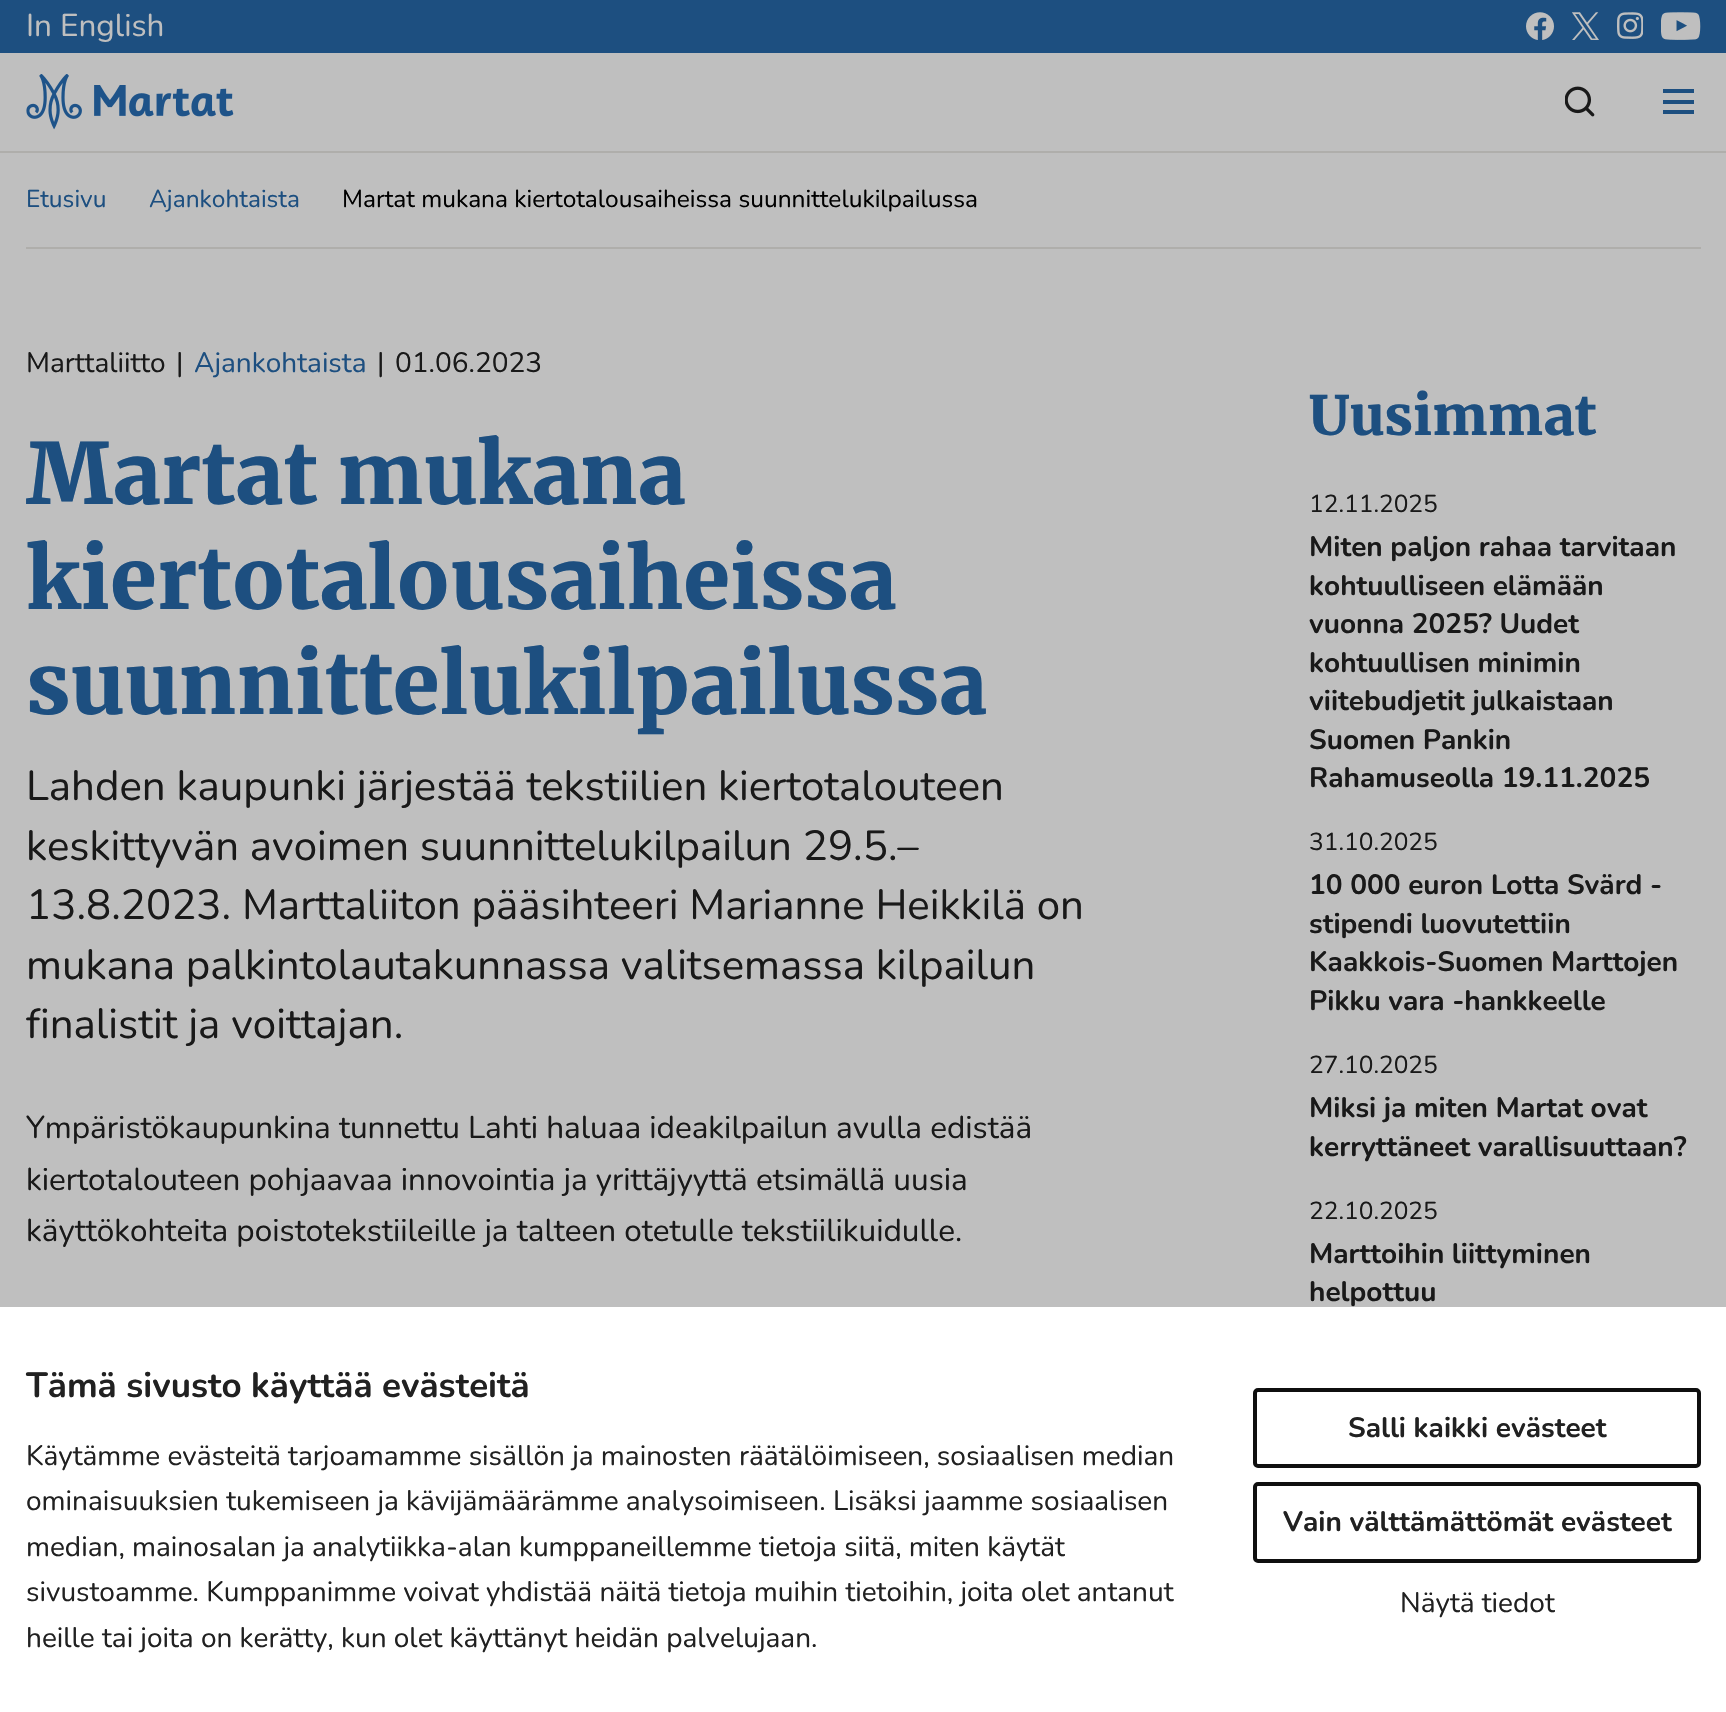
#include "include/core/SkBlurTypes.h"
#include "include/core/SkCanvas.h"
#include "include/core/SkData.h"
#include "include/core/SkFont.h"
#include "include/core/SkFontMgr.h"
#include "include/core/SkImage.h"
#include "include/core/SkMaskFilter.h"
#include "include/core/SkPaint.h"
#include "include/core/SkPathBuilder.h"
#include "include/core/SkTextBlob.h"
#include "include/effects/SkDashPathEffect.h"
#include "include/effects/SkGradientShader.h"
#include "include/utils/SkParsePath.h"

extern sk_sp<SkFontMgr> fontMgr;

static SkFont font(const char* family, int weight, float size, bool italic = false) {
    SkFontStyle style(weight, SkFontStyle::kNormal_Width,
        italic ? SkFontStyle::kItalic_Slant : SkFontStyle::kUpright_Slant);
    SkFont result(fontMgr->matchFamilyStyle(family, style), size);
    result.setSubpixel(true);
    return result;
}

static void drawLabel(SkCanvas* canvas, const char* s, float x, float y, const SkFont& font, SkColor color) {
    SkPaint ink(SkColor4f::FromColor(color));
    ink.setAntiAlias(true);
    canvas->drawString(s, x, y, font, ink);
}

static void fillRect(SkCanvas* canvas, float x, float y, float w, float h, SkColor color) {
    SkPaint ink(SkColor4f::FromColor(color));
    ink.setAntiAlias(true);
    canvas->drawRect(SkRect::MakeXYWH(x, y, w, h), ink);
}

static void drawPhoto(SkCanvas* canvas, const char* path, float x, float y, float w, float h) {
    auto image = SkImages::DeferredFromEncodedData(SkData::MakeFromFileName(path));
    canvas->drawImageRect(image, SkRect::MakeXYWH(x, y, w, h), SkSamplingOptions());
}

void draw(SkCanvas* canvas) {
    SkPaint paint;
    paint.setAntiAlias(true);
    canvas->clear(0xFFBFBFBF);
    fillRect(canvas, 0, 0, 1726, 53, 0xFF1D4F80);
    SkFont font1 = font("Nunito", 400, 31.5f);
    drawLabel(canvas, "In English", 26, 36, font1, 0xFFBFBFBF);
    drawPhoto(canvas, "assets/img1.png", 1526, 12, 28, 28);
    drawPhoto(canvas, "assets/img2.png", 1572, 12, 27, 28);
    drawPhoto(canvas, "assets/img3.png", 1617, 12, 26, 27);
    drawPhoto(canvas, "assets/img4.png", 1661, 12, 40, 28);
    drawPhoto(canvas, "assets/img5.png", 26, 74, 208, 56);
    drawPhoto(canvas, "assets/img6.png", 1565, 86, 30, 31);
    fillRect(canvas, 1663, 100, 31, 4, 0xFF1D4F80);
    fillRect(canvas, 1663, 89, 31, 4, 0xFF1D4F80);
    fillRect(canvas, 1663, 110, 31, 4, 0xFF1D4F80);
    fillRect(canvas, 0, 151, 1726, 2, 0xFFAFAEAB);
    fillRect(canvas, 26, 247, 1675, 2, 0xFFAFAEAB);
    SkFont font2 = font("Nunito", 400, 24.5f);
    drawLabel(canvas, "Etusivu", 26, 207, font2, 0xFF1D4F80);
    drawLabel(canvas, "Ajankohtaista", 149, 207, font2, 0xFF1D4F80);
    drawLabel(canvas, "Martat mukana kiertotalousaiheissa suunnittelukilpailussa", 342, 207, font2, 0xFF000000);
    SkFont font3 = font("Nunito", 400, 28);
    drawLabel(canvas, "Marttaliitto", 26, 372, font3, 0xFF191919);
    drawLabel(canvas, "|", 176, 372, font3, 0xFF191919);
    drawLabel(canvas, "Ajankohtaista", 194, 372, font3, 0xFF1D4F80);
    drawLabel(canvas, "|", 377, 372, font3, 0xFF191919);
    drawLabel(canvas, "01.06.2023", 395, 372, font3, 0xFF191919);
    SkFont font4 = font("Merriweather", 900, 84);
    drawLabel(canvas, "Martat mukana", 26, 504, font4, 0xFF1D4F80);
    drawLabel(canvas, "kiertotalousaiheissa", 26, 609, font4, 0xFF1D4F80);
    drawLabel(canvas, "suunnittelukilpailussa", 26, 714, font4, 0xFF1D4F80);
    SkFont font5 = font("Nunito", 400, 42);
    drawLabel(canvas, "Lahden kaupunki järjestää tekstiilien kiertotalouteen", 26, 800, font5, 0xFF191919);
    drawLabel(canvas, "keskittyvän avoimen suunnittelukilpailun 29.5.–", 26, 860, font5, 0xFF191919);
    drawLabel(canvas, "13.8.2023. Marttaliiton pääsihteeri Marianne Heikkilä on", 26, 919, font5, 0xFF191919);
    drawLabel(canvas, "mukana palkintolautakunnassa valitsemassa kilpailun", 26, 979, font5, 0xFF191919);
    drawLabel(canvas, "finalistit ja voittajan.", 26, 1038, font5, 0xFF191919);
    drawLabel(canvas, "Ympäristökaupunkina tunnettu Lahti haluaa ideakilpailun avulla edistää", 26, 1138, font1, 0xFF191919);
    drawLabel(canvas, "kiertotalouteen pohjaavaa innovointia ja yrittäjyyttä etsimällä uusia", 26, 1190, font1, 0xFF191919);
    drawLabel(canvas, "käyttökohteita poistotekstiileille ja talteen otetulle tekstiilikuidulle.", 26, 1241, font1, 0xFF191919);
    SkFont font6 = font("Merriweather", 900, 54.25f);
    drawLabel(canvas, "Uusimmat", 1309, 435, font6, 0xFF1D4F80);
    drawLabel(canvas, "12.11.2025", 1309, 512, font2, 0xFF191919);
    SkFont font7 = font("Nunito", 700, 28);
    drawLabel(canvas, "Miten paljon rahaa tarvitaan", 1309, 556, font7, 0xFF191919);
    drawLabel(canvas, "kohtuulliseen elämään", 1309, 595, font7, 0xFF191919);
    drawLabel(canvas, "vuonna 2025? Uudet", 1309, 633, font7, 0xFF191919);
    drawLabel(canvas, "kohtuullisen minimin", 1309, 672, font7, 0xFF191919);
    drawLabel(canvas, "viitebudjetit julkaistaan", 1309, 710, font7, 0xFF191919);
    drawLabel(canvas, "Suomen Pankin", 1309, 749, font7, 0xFF191919);
    drawLabel(canvas, "Rahamuseolla 19.11.2025", 1309, 787, font7, 0xFF191919);
    drawLabel(canvas, "31.10.2025", 1309, 850, font2, 0xFF191919);
    drawLabel(canvas, "10 000 euron Lotta Svärd -", 1309, 894, font7, 0xFF191919);
    drawLabel(canvas, "stipendi luovutettiin", 1309, 933, font7, 0xFF191919);
    drawLabel(canvas, "Kaakkois-Suomen Marttojen", 1309, 971, font7, 0xFF191919);
    drawLabel(canvas, "Pikku vara -hankkeelle", 1309, 1010, font7, 0xFF191919);
    drawLabel(canvas, "27.10.2025", 1309, 1073, font2, 0xFF191919);
    drawLabel(canvas, "Miksi ja miten Martat ovat", 1309, 1117, font7, 0xFF191919);
    drawLabel(canvas, "kerryttäneet varallisuuttaan?", 1309, 1156, font7, 0xFF191919);
    drawLabel(canvas, "22.10.2025", 1309, 1219, font2, 0xFF191919);
    drawLabel(canvas, "Marttoihin liittyminen", 1309, 1263, font7, 0xFF191919);
    drawLabel(canvas, "helpottuu", 1309, 1301, font7, 0xFF191919);
    fillRect(canvas, 0, 1307, 1726, 405, 0xFFFFFFFF);
    SkFont font8 = font("Nunito", 700, 35);
    drawLabel(canvas, "Tämä sivusto käyttää evästeitä", 26, 1397, font8, 0xFF212121);
    drawLabel(canvas, "Käytämme evästeitä tarjoamamme sisällön ja mainosten räätälöimiseen, sosiaalisen median", 26, 1465, font3, 0xFF212121);
    drawLabel(canvas, "ominaisuuksien tukemiseen ja kävijämäärämme analysoimiseen. Lisäksi jaamme sosiaalisen", 26, 1510, font3, 0xFF212121);
    drawLabel(canvas, "median, mainosalan ja analytiikka-alan kumppaneillemme tietoja siitä, miten käytät", 26, 1556, font3, 0xFF212121);
    drawLabel(canvas, "sivustoamme. Kumppanimme voivat yhdistää näitä tietoja muihin tietoihin, joita olet antanut", 26, 1601, font3, 0xFF212121);
    drawLabel(canvas, "heille tai joita on kerätty, kun olet käyttänyt heidän palvelujaan.", 26, 1647, font3, 0xFF212121);
    paint.setStroke(true);
    paint.setStrokeWidth(4);
    paint.setColor(0xFF0F0F0F);
    canvas->drawRoundRect(SkRect::MakeXYWH(1255, 1390, 444, 76), 3, 3, paint);
    drawLabel(canvas, "Salli kaikki evästeet", 1348, 1437, font7, 0xFF212121);
    canvas->drawRoundRect(SkRect::MakeXYWH(1255, 1484, 444, 77), 3, 3, paint);
    drawLabel(canvas, "Vain välttämättömät evästeet", 1283, 1531, font7, 0xFF212121);
    drawLabel(canvas, "Näytä tiedot", 1400, 1612, font3, 0xFF212121);
}
